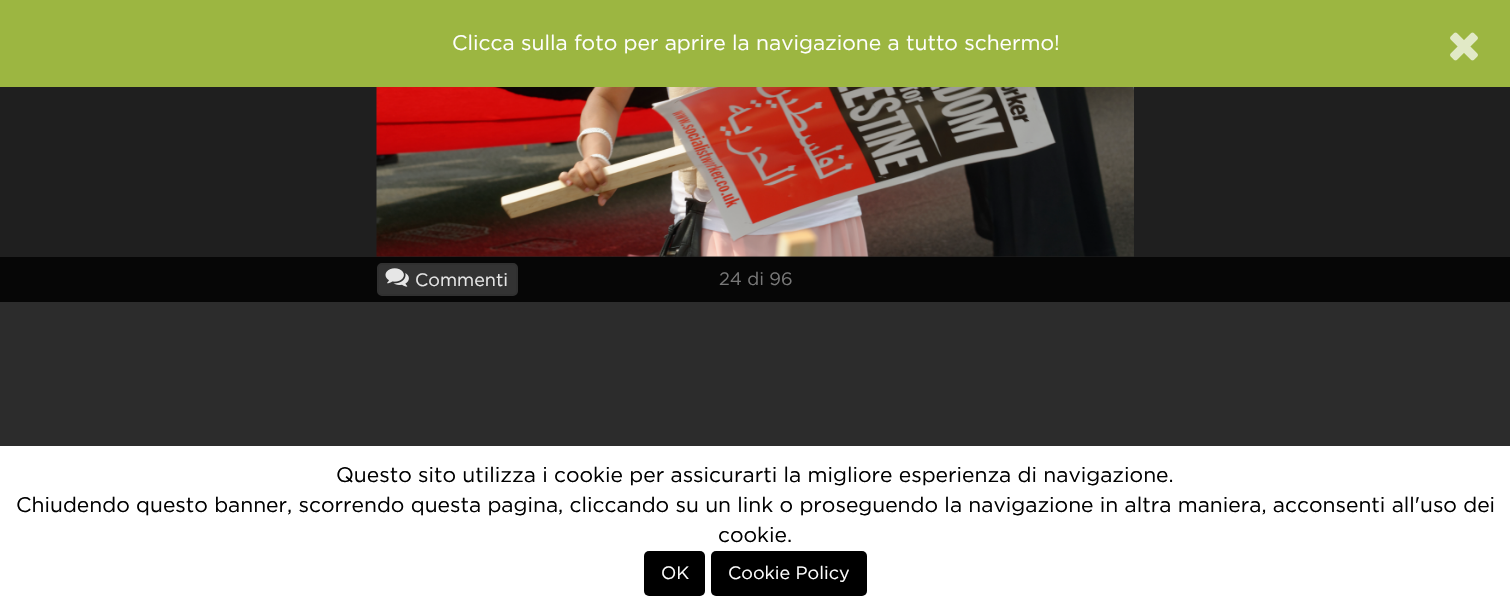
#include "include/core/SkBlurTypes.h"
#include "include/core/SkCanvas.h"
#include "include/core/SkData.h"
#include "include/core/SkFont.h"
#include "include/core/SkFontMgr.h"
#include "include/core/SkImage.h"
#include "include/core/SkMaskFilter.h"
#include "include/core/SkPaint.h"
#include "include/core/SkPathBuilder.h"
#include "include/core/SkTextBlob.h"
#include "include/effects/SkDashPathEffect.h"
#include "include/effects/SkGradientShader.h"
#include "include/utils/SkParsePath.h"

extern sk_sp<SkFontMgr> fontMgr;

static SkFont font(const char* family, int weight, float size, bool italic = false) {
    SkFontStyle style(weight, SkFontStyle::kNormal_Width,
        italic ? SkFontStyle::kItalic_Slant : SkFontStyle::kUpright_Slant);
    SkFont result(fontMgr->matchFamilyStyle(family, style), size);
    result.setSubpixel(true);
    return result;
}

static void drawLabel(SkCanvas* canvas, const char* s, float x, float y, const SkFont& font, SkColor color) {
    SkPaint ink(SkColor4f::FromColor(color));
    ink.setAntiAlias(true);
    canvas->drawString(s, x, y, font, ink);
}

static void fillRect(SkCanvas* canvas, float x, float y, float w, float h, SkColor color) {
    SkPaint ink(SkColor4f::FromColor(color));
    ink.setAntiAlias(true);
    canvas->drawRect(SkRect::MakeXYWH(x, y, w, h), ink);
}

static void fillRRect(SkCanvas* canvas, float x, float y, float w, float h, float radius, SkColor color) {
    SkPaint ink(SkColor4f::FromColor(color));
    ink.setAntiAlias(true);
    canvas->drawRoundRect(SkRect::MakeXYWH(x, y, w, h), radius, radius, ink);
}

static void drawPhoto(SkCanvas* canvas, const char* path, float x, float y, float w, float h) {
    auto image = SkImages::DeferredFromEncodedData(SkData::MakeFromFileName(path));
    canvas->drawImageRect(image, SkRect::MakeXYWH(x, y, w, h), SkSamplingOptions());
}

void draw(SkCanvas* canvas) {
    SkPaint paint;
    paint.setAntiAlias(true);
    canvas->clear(0xFF2C2C2C);
    fillRect(canvas, 0, 0, 1510, 87, 0xFF9CB641);
    SkFont font1 = font("Gotham", 400, 21);
    drawLabel(canvas, "Clicca sulla foto per aprire la navigazione a tutto schermo!", 452, 50, font1, 0xFFFFFFFF);
    drawPhoto(canvas, "assets/img1.png", 1450, 32, 28, 29);
    fillRect(canvas, 0, 87, 1510, 170, 0xFF1F1F1F);
    drawPhoto(canvas, "assets/img2.png", 376, 87, 758, 170);
    fillRect(canvas, 0, 257, 1510, 45, 0xFF060606);
    paint.setColor(0xFF333333);
    canvas->drawRoundRect(SkRect::MakeXYWH(378, 264, 139, 31), 4, 4, paint);
    paint.setStroke(true);
    paint.setStrokeWidth(2);
    paint.setColor(0xFF303030);
    canvas->drawRoundRect(SkRect::MakeXYWH(378, 264, 139, 31), 4, 4, paint);
    drawPhoto(canvas, "assets/img3.png", 385, 268, 24, 19);
    SkFont font2 = font("Gotham", 400, 18);
    drawLabel(canvas, "Commenti", 415, 286, font2, 0xFFE6E6E6);
    drawLabel(canvas, "24 di 96", 719, 285, font2, 0xFF777777);
    fillRect(canvas, 0, 446, 1510, 164, 0xFFFFFFFF);
    drawLabel(canvas, "Questo sito utilizza i cookie per assicurarti la migliore esperienza di navigazione.", 336, 482, font1, 0xFF000000);
    drawLabel(canvas, "Chiudendo questo banner, scorrendo questa pagina, cliccando su un link o proseguendo la navigazione in altra maniera, acconsenti all'uso dei", 16, 512, font1, 0xFF000000);
    drawLabel(canvas, "cookie.", 718, 542, font1, 0xFF000000);
    fillRRect(canvas, 644, 551, 61, 45, 5, 0xFF000000);
    drawLabel(canvas, "OK", 661, 579, font2, 0xFFFFFFFF);
    fillRRect(canvas, 711, 551, 156, 45, 5, 0xFF000000);
    drawLabel(canvas, "Cookie Policy", 728, 579, font2, 0xFFFFFFFF);
}
